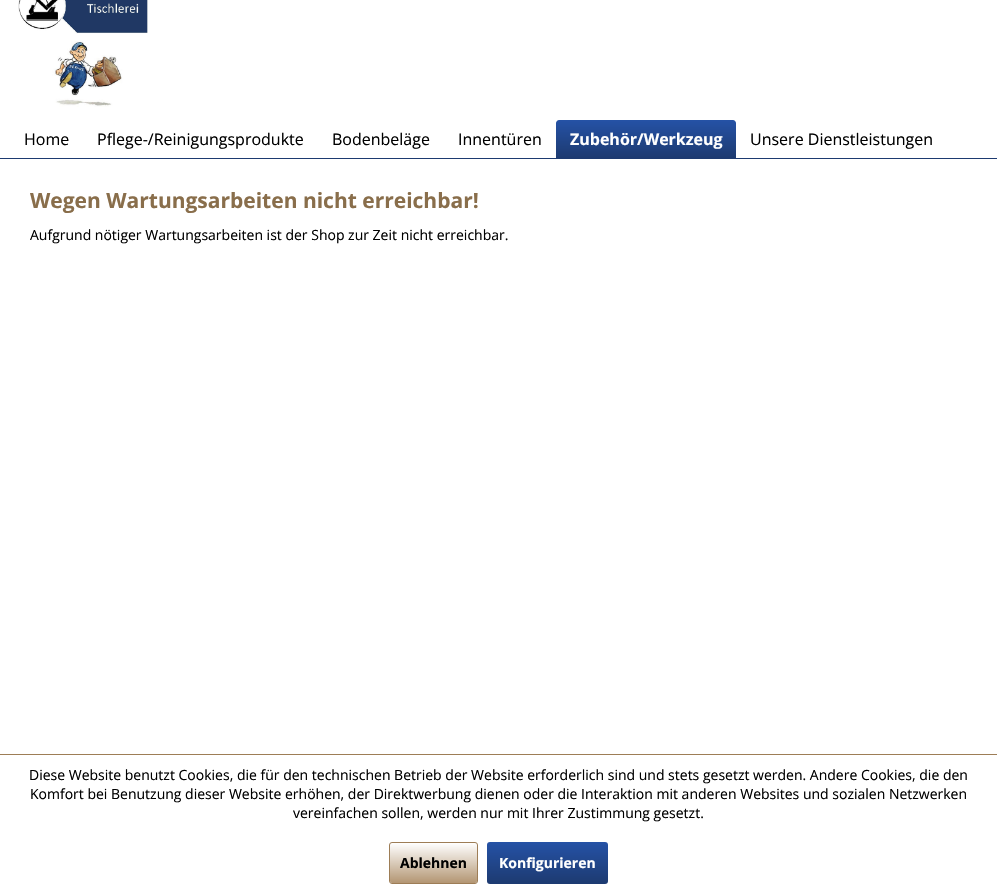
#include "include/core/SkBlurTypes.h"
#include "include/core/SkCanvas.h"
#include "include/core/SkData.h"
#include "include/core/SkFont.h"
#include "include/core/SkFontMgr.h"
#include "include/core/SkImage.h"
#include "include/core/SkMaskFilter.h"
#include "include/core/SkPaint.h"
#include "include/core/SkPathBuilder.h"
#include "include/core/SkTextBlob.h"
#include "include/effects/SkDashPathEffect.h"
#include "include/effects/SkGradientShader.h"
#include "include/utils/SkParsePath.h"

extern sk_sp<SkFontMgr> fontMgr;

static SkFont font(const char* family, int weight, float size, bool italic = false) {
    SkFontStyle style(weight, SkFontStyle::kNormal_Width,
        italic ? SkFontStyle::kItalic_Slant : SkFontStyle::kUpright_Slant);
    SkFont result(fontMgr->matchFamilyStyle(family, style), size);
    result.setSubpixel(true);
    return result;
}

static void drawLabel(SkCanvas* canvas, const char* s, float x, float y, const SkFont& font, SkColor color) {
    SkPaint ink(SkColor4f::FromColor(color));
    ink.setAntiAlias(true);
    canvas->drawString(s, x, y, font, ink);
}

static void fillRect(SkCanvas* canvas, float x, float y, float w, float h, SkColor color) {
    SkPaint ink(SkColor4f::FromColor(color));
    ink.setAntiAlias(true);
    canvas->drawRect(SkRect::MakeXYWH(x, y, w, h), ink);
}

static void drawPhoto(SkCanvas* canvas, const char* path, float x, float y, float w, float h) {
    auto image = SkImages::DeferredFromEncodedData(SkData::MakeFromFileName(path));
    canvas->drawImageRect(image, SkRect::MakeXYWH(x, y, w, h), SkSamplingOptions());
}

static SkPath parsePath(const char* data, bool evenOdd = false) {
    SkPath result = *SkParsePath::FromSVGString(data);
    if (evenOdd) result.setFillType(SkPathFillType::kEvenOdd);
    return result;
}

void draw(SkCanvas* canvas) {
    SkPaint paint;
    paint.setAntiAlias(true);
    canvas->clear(0xFFFFFFFF);
    drawPhoto(canvas, "assets/img1.png", 18, 0, 130, 107);
    fillRect(canvas, 0, 158, 997, 1, 0xFF1D3A70);
    SkFont font1 = font("Open Sans", 400, 16);
    drawLabel(canvas, "Home", 24, 145, font1, 0xFF000000);
    drawLabel(canvas, "Pflege-/Reinigungsprodukte", 97, 145, font1, 0xFF000000);
    drawLabel(canvas, "Bodenbeläge", 332, 145, font1, 0xFF000000);
    drawLabel(canvas, "Innentüren", 458, 145, font1, 0xFF000000);
    {
        const SkColor colors[] = {0xFF2552A6, 0xFF1D3A70};
        const float stops[] = {0, 1};
        const SkPoint ends[] = {{646, 120}, {646, 158}};
        paint.setShader(SkGradientShader::MakeLinear(ends, colors, stops, 2, SkTileMode::kClamp));
        paint.setAlpha(255);
    }
    canvas->drawPath(parsePath("M559 120H733C734.5 120 736 121.5 736 123V158H556V123C556 121.5 557.5 120 559 120Z"), paint);
    SkFont font2 = font("Open Sans", 700, 16);
    drawLabel(canvas, "Zubehör/Werkzeug", 570, 145, font2, 0xFFFFFFFF);
    drawLabel(canvas, "Unsere Dienstleistungen", 750, 145, font1, 0xFF000000);
    SkFont font3 = font("Open Sans", 700, 21);
    drawLabel(canvas, "Wegen Wartungsarbeiten nicht erreichbar!", 30, 208, font3, 0xFF896E4B);
    SkFont font4 = font("Open Sans", 400, 14);
    drawLabel(canvas, "Aufgrund nötiger Wartungsarbeiten ist der Shop zur Zeit nicht erreichbar.", 30, 240, font4, 0xFF000000);
    fillRect(canvas, 0, 754, 997, 1, 0xFF9D7D56);
    drawLabel(canvas, "Diese Website benutzt Cookies, die für den technischen Betrieb der Website erforderlich sind und stets gesetzt werden. Andere Cookies, die den", 29, 780, font4, 0xFF000000);
    drawLabel(canvas, "Komfort bei Benutzung dieser Website erhöhen, der Direktwerbung dienen oder die Interaktion mit anderen Websites und sozialen Netzwerken", 30, 799, font4, 0xFF000000);
    drawLabel(canvas, "vereinfachen sollen, werden nur mit Ihrer Zustimmung gesetzt.", 293, 818, font4, 0xFF000000);
    {
        const SkColor colors[] = {0xFFFFFFFF, 0xFFB39673};
        const float stops[] = {0, 1};
        const SkPoint ends[] = {{434, 843}, {434, 883}};
        paint.setShader(SkGradientShader::MakeLinear(ends, colors, stops, 2, SkTileMode::kClamp));
        paint.setAlpha(255);
    }
    canvas->drawRoundRect(SkRect::MakeXYWH(390, 843, 87, 40), 2, 2, paint);
    paint.setStroke(true);
    paint.setStrokeWidth(1);
    paint.setShader(nullptr);
    paint.setColor(0xFF9D7D56);
    canvas->drawRoundRect(SkRect::MakeXYWH(389.5f, 842.5f, 88, 41), 2.5f, 2.5f, paint);
    SkFont font5 = font("Open Sans", 700, 14);
    drawLabel(canvas, "Ablehnen", 400, 868, font5, 0xFF000000);
    paint.setStroke(false);
    {
        const SkColor colors[] = {0xFF2552A6, 0xFF1D3A70};
        const float stops[] = {0, 1};
        const SkPoint ends[] = {{548, 842}, {548, 884}};
        paint.setShader(SkGradientShader::MakeLinear(ends, colors, stops, 2, SkTileMode::kClamp));
        paint.setAlpha(255);
    }
    canvas->drawRoundRect(SkRect::MakeXYWH(487, 842, 121, 42), 3, 3, paint);
    drawLabel(canvas, "Konfigurieren", 499, 868, font5, 0xFFFFFFFF);
}
